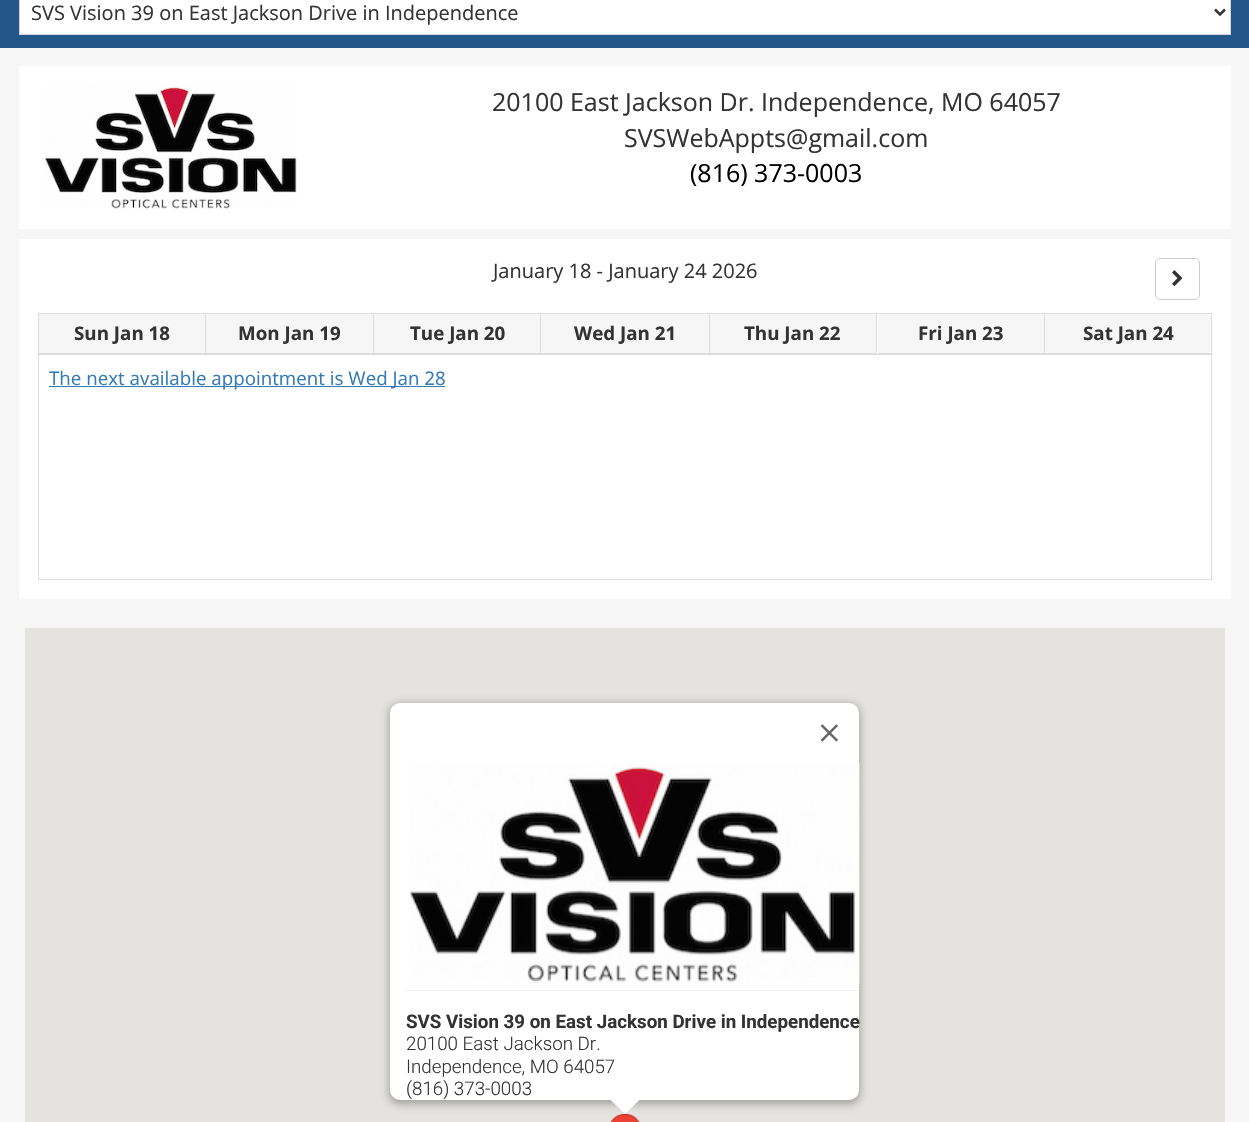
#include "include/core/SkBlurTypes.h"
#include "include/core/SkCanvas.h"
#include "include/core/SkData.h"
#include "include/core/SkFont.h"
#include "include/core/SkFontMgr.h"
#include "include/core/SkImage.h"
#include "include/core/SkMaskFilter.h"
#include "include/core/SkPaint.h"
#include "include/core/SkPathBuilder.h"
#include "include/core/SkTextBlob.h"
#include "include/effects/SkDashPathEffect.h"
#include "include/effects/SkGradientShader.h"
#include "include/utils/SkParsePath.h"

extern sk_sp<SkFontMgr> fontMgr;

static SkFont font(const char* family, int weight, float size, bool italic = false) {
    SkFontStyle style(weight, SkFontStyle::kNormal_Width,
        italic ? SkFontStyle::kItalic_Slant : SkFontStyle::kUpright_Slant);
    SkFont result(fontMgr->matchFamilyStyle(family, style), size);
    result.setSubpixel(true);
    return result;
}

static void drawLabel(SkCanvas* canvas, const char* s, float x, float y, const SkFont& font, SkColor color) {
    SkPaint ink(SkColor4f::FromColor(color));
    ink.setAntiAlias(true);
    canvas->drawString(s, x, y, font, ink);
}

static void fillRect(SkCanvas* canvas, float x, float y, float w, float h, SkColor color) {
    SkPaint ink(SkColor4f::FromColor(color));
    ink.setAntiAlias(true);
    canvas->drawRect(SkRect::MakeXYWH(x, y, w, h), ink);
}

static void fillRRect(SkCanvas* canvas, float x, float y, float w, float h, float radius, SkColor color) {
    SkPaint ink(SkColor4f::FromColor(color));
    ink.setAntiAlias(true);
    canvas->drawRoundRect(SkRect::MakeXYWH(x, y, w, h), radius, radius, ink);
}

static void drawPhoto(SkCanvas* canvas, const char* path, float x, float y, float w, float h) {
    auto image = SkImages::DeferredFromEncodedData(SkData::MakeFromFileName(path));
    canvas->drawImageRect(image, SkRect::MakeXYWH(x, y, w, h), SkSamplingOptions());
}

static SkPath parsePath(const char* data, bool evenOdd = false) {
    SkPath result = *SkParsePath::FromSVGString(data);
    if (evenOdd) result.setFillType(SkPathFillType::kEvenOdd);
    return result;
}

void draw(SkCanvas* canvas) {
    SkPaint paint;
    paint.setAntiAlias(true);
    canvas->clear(0xFFF6F6F6);
    fillRect(canvas, 0, 0, 1249, 48, 0xFF235789);
    paint.setColor(0xFFFFFFFF);
    canvas->drawRect(SkRect::MakeXYWH(19.5f, -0.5f, 1211, 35), paint);
    paint.setStroke(true);
    paint.setStrokeWidth(1);
    paint.setColor(0xFFD3D4D8);
    canvas->drawRect(SkRect::MakeXYWH(19.5f, -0.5f, 1211, 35), paint);
    paint.setStrokeWidth(2.5f);
    paint.setColor(0xFF333333);
    canvas->drawPath(parsePath("M1215 9.5L1220 14.5L1225 9.5"), paint);
    SkFont font1 = font("Open Sans", 400, 20);
    drawLabel(canvas, "SVS Vision 39 on East Jackson Drive in Independence", 31, 20, font1, 0xFF333333);
    fillRect(canvas, 19, 66, 1212, 163, 0xFFFFFFFF);
    drawPhoto(canvas, "assets/img1.png", 45, 85, 252, 124);
    SkFont font2 = font("Open Sans", 400, 25);
    drawLabel(canvas, "20100 East Jackson Dr. Independence, MO 64057", 492, 111, font2, 0xFF333333);
    drawLabel(canvas, "SVSWebAppts@gmail.com", 624, 147, font2, 0xFF333333);
    drawLabel(canvas, "(816) 373-0003", 690, 182, font2, 0xFF000000);
    fillRect(canvas, 19, 239, 1212, 360, 0xFFFFFFFF);
    drawLabel(canvas, "January 18 - January 24 2026", 493, 278, font1, 0xFF333333);
    paint.setStrokeWidth(1);
    paint.setColor(0xFFCCCCCC);
    canvas->drawRoundRect(SkRect::MakeXYWH(1155.5f, 258.5f, 44, 41), 4.5f, 4.5f, paint);
    drawPhoto(canvas, "assets/img2.png", 1172, 270, 11, 16);
    fillRect(canvas, 1044, 313, 169, 1, 0xFFDDDDDD);
    fillRect(canvas, 38, 354, 1175, 1, 0xFFDDDDDD);
    fillRect(canvas, 1044, 313, 1, 42, 0xFFDDDDDD);
    fillRect(canvas, 876, 313, 169, 1, 0xFFDDDDDD);
    fillRect(canvas, 876, 313, 1, 42, 0xFFDDDDDD);
    fillRect(canvas, 709, 313, 169, 1, 0xFFDDDDDD);
    fillRect(canvas, 709, 313, 1, 42, 0xFFDDDDDD);
    fillRect(canvas, 540, 313, 170, 1, 0xFFDDDDDD);
    fillRect(canvas, 540, 313, 1, 42, 0xFFDDDDDD);
    fillRect(canvas, 373, 313, 168, 1, 0xFFDDDDDD);
    fillRect(canvas, 373, 313, 1, 42, 0xFFDDDDDD);
    fillRect(canvas, 205, 313, 169, 1, 0xFFDDDDDD);
    fillRect(canvas, 205, 313, 1, 42, 0xFFDDDDDD);
    fillRect(canvas, 38, 313, 168, 1, 0xFFDDDDDD);
    fillRect(canvas, 1211, 354, 1, 226, 0xFFDDDDDD);
    fillRect(canvas, 38, 579, 1175, 1, 0xFFDDDDDD);
    fillRect(canvas, 38, 354, 1, 226, 0xFFDDDDDD);
    fillRect(canvas, 38, 313, 1, 42, 0xFFDDDDDD);
    fillRect(canvas, 39, 314, 166, 39, 0xFFF6F6F6);
    fillRect(canvas, 39, 353, 166, 1, 0xFFDDDDDD);
    SkFont font3 = font("Open Sans", 700, 18.75f);
    drawLabel(canvas, "Sun Jan 18", 74, 340, font3, 0xFF333333);
    fillRect(canvas, 206, 314, 167, 39, 0xFFF6F6F6);
    fillRect(canvas, 206, 353, 167, 1, 0xFFDDDDDD);
    drawLabel(canvas, "Mon Jan 19", 238, 340, font3, 0xFF333333);
    fillRect(canvas, 374, 314, 166, 39, 0xFFF6F6F6);
    fillRect(canvas, 374, 353, 166, 1, 0xFFDDDDDD);
    drawLabel(canvas, "Tue Jan 20", 410, 340, font3, 0xFF333333);
    fillRect(canvas, 541, 314, 168, 39, 0xFFF6F6F6);
    fillRect(canvas, 541, 353, 168, 1, 0xFFDDDDDD);
    drawLabel(canvas, "Wed Jan 21", 574, 340, font3, 0xFF333333);
    fillRect(canvas, 710, 314, 166, 39, 0xFFF6F6F6);
    fillRect(canvas, 710, 353, 166, 1, 0xFFDDDDDD);
    drawLabel(canvas, "Thu Jan 22", 744, 340, font3, 0xFF333333);
    fillRect(canvas, 878, 314, 166, 39, 0xFFF6F6F6);
    fillRect(canvas, 878, 353, 166, 1, 0xFFDDDDDD);
    drawLabel(canvas, "Fri Jan 23", 918, 340, font3, 0xFF333333);
    fillRect(canvas, 1211, 313, 1, 42, 0xFFDDDDDD);
    fillRect(canvas, 1045, 314, 166, 39, 0xFFF6F6F6);
    fillRect(canvas, 1045, 353, 166, 1, 0xFFDDDDDD);
    drawLabel(canvas, "Sat Jan 24", 1083, 340, font3, 0xFF333333);
    fillRect(canvas, 49, 386, 396, 1, 0xFF337AB7);
    SkFont font4 = font("Open Sans", 400, 18.75f);
    drawLabel(canvas, "The next available appointment is Wed Jan 28", 49, 385, font4, 0xFF337AB7);
    fillRect(canvas, 25, 628, 1200, 494, 0xFFE5E3DF);
    drawPhoto(canvas, "assets/img5.png", 610, 1114, 30, 8);
    paint.setStroke(false);
    paint.setColor(0x4D000000);
    paint.setMaskFilter(SkMaskFilter::MakeBlur(kNormal_SkBlurStyle, 4.5f));
    canvas->drawRoundRect(SkRect::MakeXYWH(389, 704, 471, 400), 11, 11, paint);
    paint.setMaskFilter(nullptr);
    fillRRect(canvas, 390, 703, 469, 397, 10, 0xFFFFFFFF);
    drawPhoto(canvas, "assets/img3.png", 820, 724, 18, 18);
    fillRect(canvas, 405, 990, 454, 1, 0xFFF3F3F3);
    drawPhoto(canvas, "assets/img4.png", 409, 763, 451, 222);
    SkFont font5 = font("Roboto", 700, 18.75f);
    drawLabel(canvas, "SVS Vision 39 on East Jackson Drive in Independence", 406, 1028, font5, 0xFF333333);
    SkFont font6 = font("Roboto", 300, 18.75f);
    drawLabel(canvas, "20100 East Jackson Dr.", 406, 1050, font6, 0xFF333333);
    drawLabel(canvas, "Independence, MO 64057", 406, 1073, font6, 0xFF333333);
    drawLabel(canvas, "(816) 373-0003", 406, 1095, font6, 0xFF333333);
    paint.setColor(0xFFFFFFFF);
    canvas->drawPath(parsePath("M610 1099.5V1099H640.5L625 1114Z"), paint);
}
